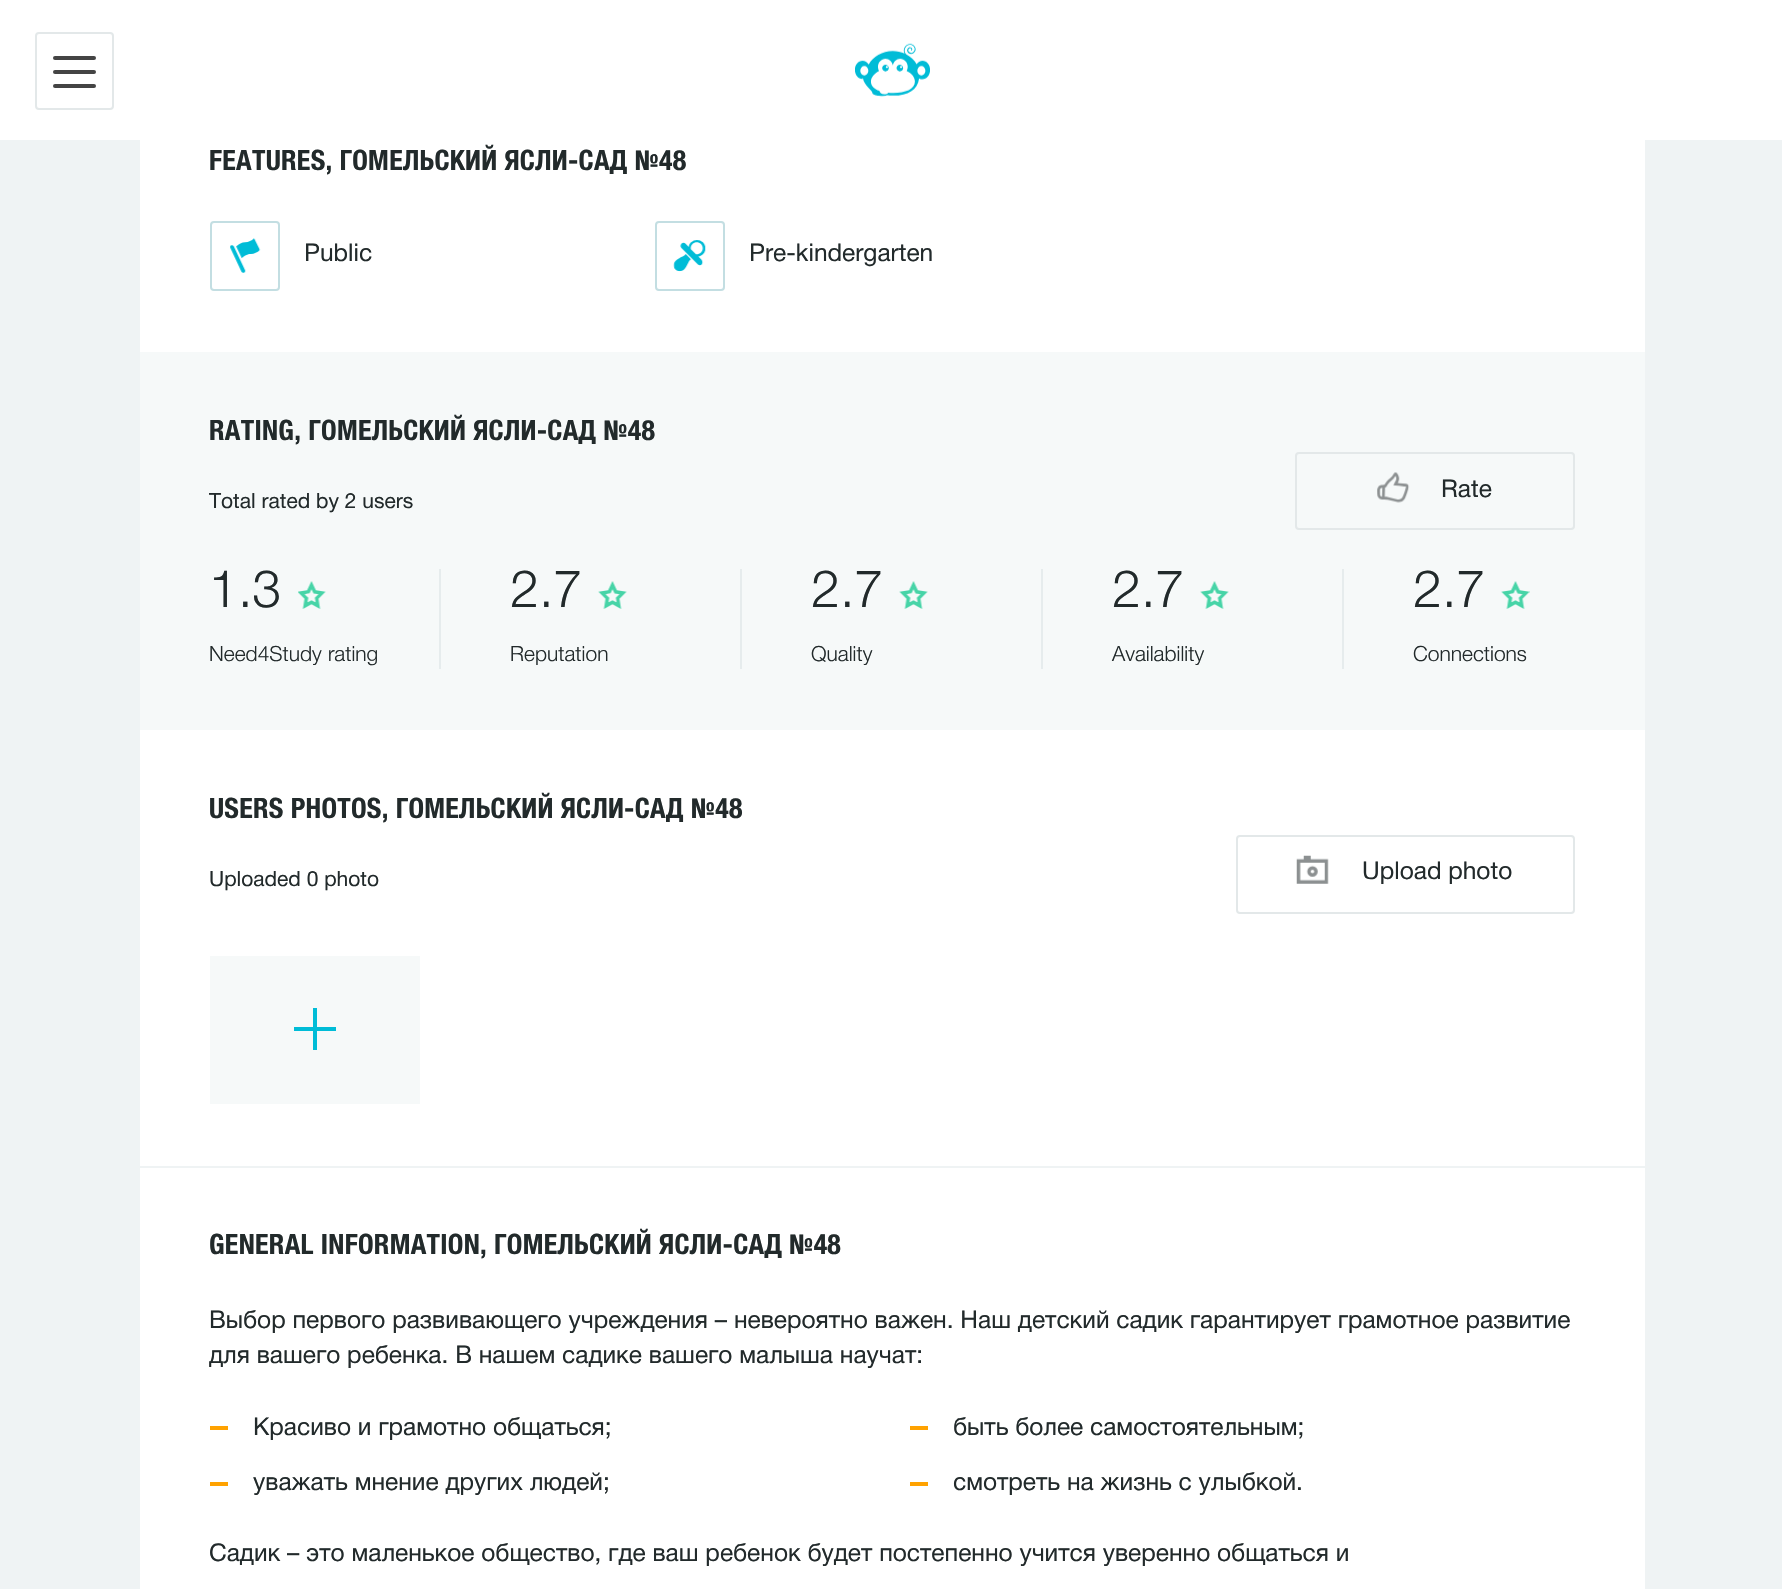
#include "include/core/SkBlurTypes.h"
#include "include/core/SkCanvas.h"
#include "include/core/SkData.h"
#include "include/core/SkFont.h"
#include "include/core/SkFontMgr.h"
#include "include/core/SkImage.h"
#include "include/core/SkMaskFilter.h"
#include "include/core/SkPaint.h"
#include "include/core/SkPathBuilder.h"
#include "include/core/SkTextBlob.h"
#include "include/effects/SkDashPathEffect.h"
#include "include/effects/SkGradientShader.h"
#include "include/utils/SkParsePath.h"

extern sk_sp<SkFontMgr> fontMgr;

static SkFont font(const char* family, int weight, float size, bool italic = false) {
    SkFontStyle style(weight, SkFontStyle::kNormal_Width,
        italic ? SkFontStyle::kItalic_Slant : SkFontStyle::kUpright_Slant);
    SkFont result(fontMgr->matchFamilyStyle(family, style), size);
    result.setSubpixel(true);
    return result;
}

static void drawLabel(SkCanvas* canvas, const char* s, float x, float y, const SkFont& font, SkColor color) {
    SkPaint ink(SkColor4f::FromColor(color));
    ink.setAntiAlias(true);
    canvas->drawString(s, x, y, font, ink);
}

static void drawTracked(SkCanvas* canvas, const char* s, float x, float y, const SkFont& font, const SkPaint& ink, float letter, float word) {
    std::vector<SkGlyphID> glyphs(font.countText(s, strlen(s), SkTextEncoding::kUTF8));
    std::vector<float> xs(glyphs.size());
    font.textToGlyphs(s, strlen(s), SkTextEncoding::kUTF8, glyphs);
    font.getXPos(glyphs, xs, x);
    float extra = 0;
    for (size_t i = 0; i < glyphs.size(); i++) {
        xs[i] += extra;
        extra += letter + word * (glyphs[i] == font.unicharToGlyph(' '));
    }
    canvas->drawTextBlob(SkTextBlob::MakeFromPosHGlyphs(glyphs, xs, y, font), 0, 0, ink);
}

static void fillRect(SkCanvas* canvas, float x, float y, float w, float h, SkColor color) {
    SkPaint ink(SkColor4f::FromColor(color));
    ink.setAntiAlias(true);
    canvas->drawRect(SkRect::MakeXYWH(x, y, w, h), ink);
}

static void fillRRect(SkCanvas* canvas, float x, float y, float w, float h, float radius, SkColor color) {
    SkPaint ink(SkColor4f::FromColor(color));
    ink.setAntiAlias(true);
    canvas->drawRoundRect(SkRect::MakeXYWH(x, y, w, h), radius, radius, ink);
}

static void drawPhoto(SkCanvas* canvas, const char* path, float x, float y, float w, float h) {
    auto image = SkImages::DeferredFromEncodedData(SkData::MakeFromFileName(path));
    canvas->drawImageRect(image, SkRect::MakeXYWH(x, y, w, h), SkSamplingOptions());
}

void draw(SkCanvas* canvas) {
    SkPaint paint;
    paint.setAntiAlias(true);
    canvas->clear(0xFFEFF3F4);
    fillRect(canvas, 0, 0, 1782, 140, 0xFFFFFFFF);
    paint.setStroke(true);
    paint.setStrokeWidth(2);
    paint.setColor(0xFFE3E8E9);
    canvas->drawRoundRect(SkRect::MakeXYWH(36, 33, 77, 76), 3, 3, paint);
    fillRRect(canvas, 53, 70, 43, 4, 2, 0xFF444444);
    fillRRect(canvas, 53, 56, 43, 4, 2, 0xFF444444);
    fillRRect(canvas, 53, 84, 43, 4, 2, 0xFF444444);
    drawPhoto(canvas, "assets/img1.png", 855, 43, 75, 54);
    fillRect(canvas, 140, 140, 1505, 212, 0xFFFFFFFF);
    SkFont font1 = font("Helvetica Neue", 700, 28);
    paint.setStroke(false);
    paint.setColor(0xFF222A2B);
    drawTracked(canvas, "FEATURES, ГОМЕЛЬСКИЙ ЯСЛИ-САД №48", 209, 170, font1, paint, 0.3f, 0);
    paint.setStroke(true);
    paint.setColor(0xFFC3DEE2);
    canvas->drawRoundRect(SkRect::MakeXYWH(211, 222, 68, 68), 3, 3, paint);
    drawPhoto(canvas, "assets/img2.png", 230, 238, 31, 35);
    SkFont font2 = font("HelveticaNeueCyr", 400, 24.5f);
    drawLabel(canvas, "Public", 304, 261, font2, 0xFF222A2B);
    canvas->drawRoundRect(SkRect::MakeXYWH(656, 222, 68, 68), 3, 3, paint);
    drawPhoto(canvas, "assets/img3.png", 673, 240, 33, 32);
    drawLabel(canvas, "Pre-kindergarten", 749, 261, font2, 0xFF222A2B);
    fillRect(canvas, 140, 352, 1505, 378, 0xFFF6F9F9);
    paint.setStroke(false);
    paint.setColor(0xFF222A2B);
    drawTracked(canvas, "RATING, ГОМЕЛЬСКИЙ ЯСЛИ-САД №48", 209, 440, font1, paint, 0.3f, 0);
    SkFont font3 = font("HelveticaNeueCyr", 400, 21);
    drawLabel(canvas, "Total rated by 2 users", 209, 508, font3, 0xFF222A2B);
    paint.setStroke(true);
    paint.setColor(0xFFE3E8E9);
    canvas->drawRoundRect(SkRect::MakeXYWH(1296, 453, 278, 76), 3, 3, paint);
    drawPhoto(canvas, "assets/img4.png", 1377, 472, 33, 31);
    drawLabel(canvas, "Rate", 1441, 497, font2, 0xFF222A2B);
    fillRect(canvas, 439, 569, 2, 100, 0xFFE6ECED);
    SkFont font4 = font("HelveticaNeueCyr", 300, 52);
    drawLabel(canvas, "1.3", 209, 607, font4, 0xFF222A2B);
    drawPhoto(canvas, "assets/img5.png", 298, 581, 28, 28);
    SkFont font5 = font("HelveticaNeueCyr", 300, 21);
    drawLabel(canvas, "Need4Study rating", 209, 661, font5, 0xFF222A2B);
    fillRect(canvas, 740, 569, 2, 100, 0xFFE6ECED);
    drawLabel(canvas, "2.7", 510, 607, font4, 0xFF222A2B);
    drawPhoto(canvas, "assets/img6.png", 598, 581, 29, 28);
    drawLabel(canvas, "Reputation", 510, 661, font5, 0xFF222A2B);
    fillRect(canvas, 1041, 569, 2, 100, 0xFFE6ECED);
    drawLabel(canvas, "2.7", 811, 607, font4, 0xFF222A2B);
    drawPhoto(canvas, "assets/img6.png", 899, 581, 29, 28);
    drawLabel(canvas, "Quality", 811, 661, font5, 0xFF222A2B);
    fillRect(canvas, 1342, 569, 2, 100, 0xFFE6ECED);
    drawLabel(canvas, "2.7", 1112, 607, font4, 0xFF222A2B);
    drawPhoto(canvas, "assets/img6.png", 1200, 581, 29, 28);
    drawLabel(canvas, "Availability", 1112, 661, font5, 0xFF222A2B);
    drawLabel(canvas, "2.7", 1413, 607, font4, 0xFF222A2B);
    drawPhoto(canvas, "assets/img7.png", 1501, 581, 29, 28);
    drawLabel(canvas, "Connections", 1413, 661, font5, 0xFF222A2B);
    fillRect(canvas, 140, 730, 1505, 436, 0xFFFFFFFF);
    paint.setStroke(false);
    paint.setColor(0xFF222A2B);
    drawTracked(canvas, "USERS PHOTOS, ГОМЕЛЬСКИЙ ЯСЛИ-САД №48", 209, 818, font1, paint, 0.3f, 0);
    drawLabel(canvas, "Uploaded 0 photo", 209, 886, font3, 0xFF222A2B);
    paint.setStroke(true);
    paint.setColor(0xFFE3E8E9);
    canvas->drawRoundRect(SkRect::MakeXYWH(1237, 836, 337, 77), 3, 3, paint);
    drawPhoto(canvas, "assets/img8.png", 1296, 855, 33, 29);
    drawLabel(canvas, "Upload photo", 1362, 879, font2, 0xFF222A2B);
    fillRect(canvas, 210, 956, 210, 148, 0xFFF6F9F9);
    fillRect(canvas, 294, 1027, 42, 4, 0xFF00BCD7);
    fillRect(canvas, 313, 1008, 4, 42, 0xFF00BCD7);
    fillRect(canvas, 140, 1168, 1505, 421, 0xFFFFFFFF);
    paint.setStroke(false);
    paint.setColor(0xFF222A2B);
    drawTracked(canvas, "GENERAL INFORMATION, ГОМЕЛЬСКИЙ ЯСЛИ-САД №48", 209, 1254, font1, paint, 0.3f, 0);
    drawLabel(canvas, "Выбор первого развивающего учреждения – невероятно важен. Наш детский садик гарантирует грамотное развитие", 209, 1328, font2, 0xFF222A2B);
    drawLabel(canvas, "для вашего ребенка. В нашем садике вашего малыша научат:", 209, 1363, font2, 0xFF222A2B);
    fillRect(canvas, 210, 1426, 18, 4, 0xFFFFA200);
    drawLabel(canvas, "Красиво и грамотно общаться;", 253, 1435, font2, 0xFF222A2B);
    fillRect(canvas, 910, 1426, 18, 4, 0xFFFFA200);
    drawLabel(canvas, "быть более самостоятельным;", 953, 1435, font2, 0xFF222A2B);
    fillRect(canvas, 210, 1482, 18, 4, 0xFFFFA200);
    drawLabel(canvas, "уважать мнение других людей;", 253, 1490, font2, 0xFF222A2B);
    fillRect(canvas, 910, 1482, 18, 4, 0xFFFFA200);
    drawLabel(canvas, "смотреть на жизнь с улыбкой.", 953, 1490, font2, 0xFF222A2B);
    drawLabel(canvas, "Садик – это маленькое общество, где ваш ребенок будет постепенно учится уверенно общаться и", 209, 1561, font2, 0xFF222A2B);
}
